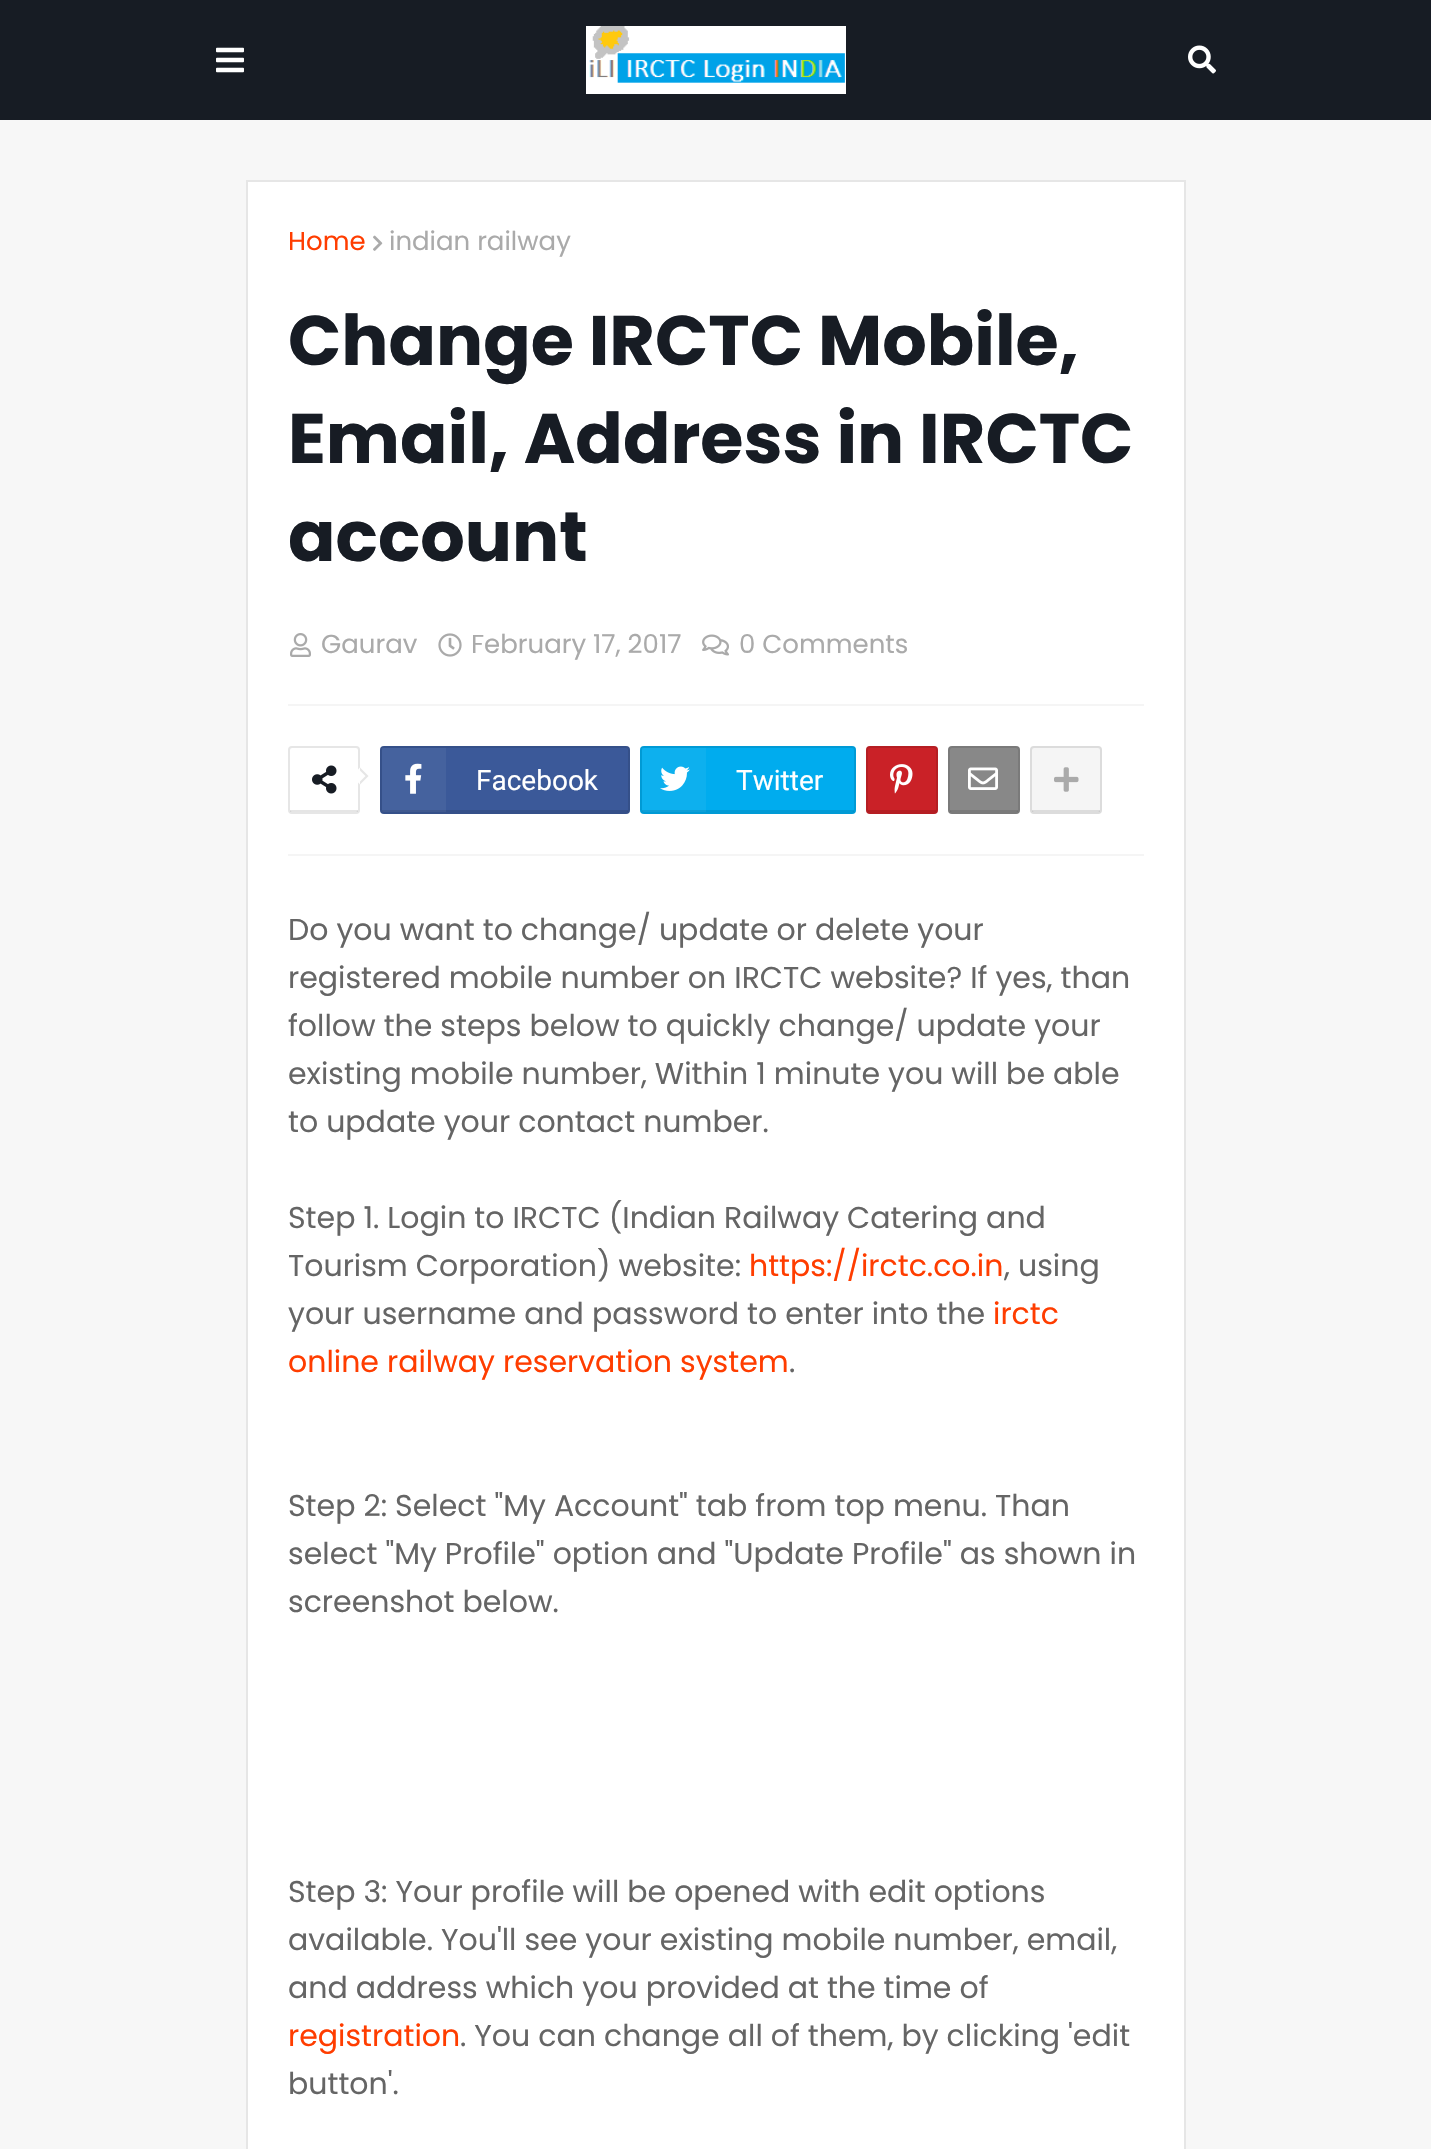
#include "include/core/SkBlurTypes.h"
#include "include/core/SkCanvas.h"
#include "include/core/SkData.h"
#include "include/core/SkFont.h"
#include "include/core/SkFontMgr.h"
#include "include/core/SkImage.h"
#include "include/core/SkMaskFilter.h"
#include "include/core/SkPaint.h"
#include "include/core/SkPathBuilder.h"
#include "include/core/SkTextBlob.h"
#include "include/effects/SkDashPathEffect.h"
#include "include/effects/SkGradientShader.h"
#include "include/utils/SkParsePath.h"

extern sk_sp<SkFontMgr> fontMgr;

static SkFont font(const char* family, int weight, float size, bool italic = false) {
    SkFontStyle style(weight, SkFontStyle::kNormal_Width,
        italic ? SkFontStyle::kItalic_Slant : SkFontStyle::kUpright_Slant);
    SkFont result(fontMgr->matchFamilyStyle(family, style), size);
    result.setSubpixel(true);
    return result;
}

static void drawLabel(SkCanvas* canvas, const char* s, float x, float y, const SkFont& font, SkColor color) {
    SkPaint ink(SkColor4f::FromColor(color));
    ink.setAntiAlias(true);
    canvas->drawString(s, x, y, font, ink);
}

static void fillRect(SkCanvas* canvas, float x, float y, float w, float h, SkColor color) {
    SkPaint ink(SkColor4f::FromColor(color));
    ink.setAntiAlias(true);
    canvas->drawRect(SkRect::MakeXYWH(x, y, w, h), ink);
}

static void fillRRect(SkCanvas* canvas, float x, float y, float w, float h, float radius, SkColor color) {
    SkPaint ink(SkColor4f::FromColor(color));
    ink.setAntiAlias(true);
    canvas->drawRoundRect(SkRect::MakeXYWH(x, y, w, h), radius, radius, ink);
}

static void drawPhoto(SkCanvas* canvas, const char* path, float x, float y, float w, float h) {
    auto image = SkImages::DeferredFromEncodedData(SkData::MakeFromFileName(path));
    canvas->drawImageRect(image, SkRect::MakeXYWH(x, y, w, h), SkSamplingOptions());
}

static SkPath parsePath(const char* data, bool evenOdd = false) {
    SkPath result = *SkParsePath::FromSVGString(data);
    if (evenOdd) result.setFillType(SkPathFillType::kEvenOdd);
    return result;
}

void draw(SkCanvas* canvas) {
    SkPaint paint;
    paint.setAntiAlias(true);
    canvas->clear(0xFFF7F7F7);
    fillRect(canvas, 0, 0, 1431, 120, 0xFF171C24);
    drawPhoto(canvas, "assets/img1.png", 216, 47, 28, 26);
    drawPhoto(canvas, "assets/img2.png", 586, 26, 260, 68);
    drawPhoto(canvas, "assets/img3.png", 1188, 45, 28, 29);
    paint.setColor(0xFFFFFFFF);
    canvas->drawRect(SkRect::MakeXYWH(247, 181, 938, 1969), paint);
    paint.setStroke(true);
    paint.setStrokeWidth(2);
    paint.setColor(0xFFE6E6E6);
    canvas->drawRect(SkRect::MakeXYWH(247, 181, 938, 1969), paint);
    fillRect(canvas, 288, 854, 856, 2, 0xFFF5F5F5);
    SkFont font1 = font("Poppins", 400, 26);
    drawLabel(canvas, "Home", 288, 250, font1, 0xFFFF3D00);
    drawPhoto(canvas, "assets/img4.png", 373, 235, 10, 16);
    drawLabel(canvas, "indian railway", 389, 250, font1, 0xFFAAAAAA);
    SkFont font2 = font("Poppins", 700, 70);
    drawLabel(canvas, "Change IRCTC Mobile,", 288, 365, font2, 0xFF171C24);
    drawLabel(canvas, "Email, Address in IRCTC", 288, 463, font2, 0xFF171C24);
    drawLabel(canvas, "account", 288, 561, font2, 0xFF171C24);
    drawPhoto(canvas, "assets/img5.png", 290, 633, 21, 24);
    drawLabel(canvas, "Gaurav", 321, 653, font1, 0xFFAAAAAA);
    drawPhoto(canvas, "assets/img6.png", 438, 633, 24, 24);
    drawLabel(canvas, "February 17, 2017", 471, 653, font1, 0xFFAAAAAA);
    drawPhoto(canvas, "assets/img7.png", 702, 634, 27, 22);
    drawLabel(canvas, "0 Comments", 739, 653, font1, 0xFFAAAAAA);
    fillRect(canvas, 288, 704, 856, 2, 0xFFF5F5F5);
    canvas->drawRoundRect(SkRect::MakeXYWH(289, 747, 70, 66), 3, 3, paint);
    fillRect(canvas, 290, 810, 68, 2, 0x1A000000);
    drawPhoto(canvas, "assets/img8.png", 312, 765, 25, 29);
    paint.setStroke(false);
    paint.setColor(0xFFFFFFFF);
    canvas->drawPath(parsePath("M360 767.5L368.5 776L360 784.5L351.5 776Z"), paint);
    paint.setColor(0xFFE6E6E6);
    canvas->drawPath(parsePath("M360 767.5L368.5 776H365.5L360 770.5ZM368.5 776L360 784.5V781.5L365.5 776Z"), paint);
    fillRRect(canvas, 380, 746, 250, 68, 4, 0xFF3B5999);
    paint.setStroke(true);
    paint.setColor(0x1A000000);
    canvas->drawRoundRect(SkRect::MakeXYWH(381, 747, 248, 66), 3, 3, paint);
    fillRect(canvas, 382, 810, 246, 2, 0x1A000000);
    fillRect(canvas, 382, 748, 64, 64, 0x0DFFFFFF);
    drawPhoto(canvas, "assets/img9.png", 405, 763, 17, 31);
    SkFont font3 = font("Roboto", 400, 28);
    drawLabel(canvas, "Facebook", 476, 790, font3, 0xFFFFFFFF);
    fillRRect(canvas, 640, 746, 216, 68, 4, 0xFF00ACEE);
    canvas->drawRoundRect(SkRect::MakeXYWH(641, 747, 214, 66), 3, 3, paint);
    fillRect(canvas, 642, 810, 212, 2, 0x1A000000);
    fillRect(canvas, 642, 748, 64, 64, 0x0DFFFFFF);
    drawPhoto(canvas, "assets/img10.png", 660, 766, 30, 25);
    drawLabel(canvas, "Twitter", 736, 790, font3, 0xFFFFFFFF);
    fillRRect(canvas, 866, 746, 72, 68, 4, 0xFFCA2127);
    canvas->drawRoundRect(SkRect::MakeXYWH(867, 747, 70, 66), 3, 3, paint);
    fillRect(canvas, 868, 810, 68, 2, 0x1A000000);
    drawPhoto(canvas, "assets/img11.png", 890, 764, 23, 30);
    fillRRect(canvas, 948, 746, 72, 68, 4, 0xFF888888);
    canvas->drawRoundRect(SkRect::MakeXYWH(949, 747, 70, 66), 3, 3, paint);
    fillRect(canvas, 950, 810, 68, 2, 0x1A000000);
    drawPhoto(canvas, "assets/img12.png", 968, 767, 30, 23);
    fillRRect(canvas, 1030, 746, 72, 68, 4, 0xFFF5F5F5);
    canvas->drawRoundRect(SkRect::MakeXYWH(1031, 747, 70, 66), 3, 3, paint);
    fillRect(canvas, 1032, 810, 68, 2, 0x1A000000);
    drawPhoto(canvas, "assets/img13.png", 1054, 767, 25, 25);
    SkFont font4 = font("Poppins", 400, 30);
    drawLabel(canvas, "Do you want to change/ update or delete your", 288, 940, font4, 0xFF656565);
    drawLabel(canvas, "registered mobile number on IRCTC website? If yes, than", 288, 988, font4, 0xFF656565);
    drawLabel(canvas, "follow the steps below to quickly change/ update your", 288, 1036, font4, 0xFF656565);
    drawLabel(canvas, "existing mobile number, Within 1 minute you will be able", 288, 1084, font4, 0xFF656565);
    drawLabel(canvas, "to update your contact number.", 288, 1132, font4, 0xFF656565);
    drawLabel(canvas, "Step 1. Login to IRCTC (Indian Railway Catering and", 288, 1228, font4, 0xFF656565);
    drawLabel(canvas, "Tourism Corporation) website:", 288, 1276, font4, 0xFF656565);
    drawLabel(canvas, "https://irctc.co.in", 749, 1276, font4, 0xFFFF3D00);
    drawLabel(canvas, ", using", 1004, 1276, font4, 0xFF656565);
    drawLabel(canvas, "your username and password to enter into the", 288, 1324, font4, 0xFF656565);
    drawLabel(canvas, "irctc", 993, 1324, font4, 0xFFFF3D00);
    drawLabel(canvas, "online railway reservation system", 288, 1372, font4, 0xFFFF3D00);
    drawLabel(canvas, ".", 789, 1372, font4, 0xFF656565);
    drawLabel(canvas, "Step 2: Select \"My Account\" tab from top menu. Than", 288, 1516, font4, 0xFF656565);
    drawLabel(canvas, "select \"My Profile\" option and \"Update Profile\" as shown in", 288, 1564, font4, 0xFF656565);
    drawLabel(canvas, "screenshot below.", 288, 1612, font4, 0xFF656565);
    drawLabel(canvas, "Step 3: Your profile will be opened with edit options", 288, 1902, font4, 0xFF656565);
    drawLabel(canvas, "available. You'll see your existing mobile number, email,", 288, 1950, font4, 0xFF656565);
    drawLabel(canvas, "and address which you provided at the time of", 288, 1998, font4, 0xFF656565);
    drawLabel(canvas, "registration", 288, 2046, font4, 0xFFFF3D00);
    drawLabel(canvas, ". You can change all of them, by clicking 'edit", 460, 2046, font4, 0xFF656565);
    drawLabel(canvas, "button'.", 288, 2094, font4, 0xFF656565);
}
